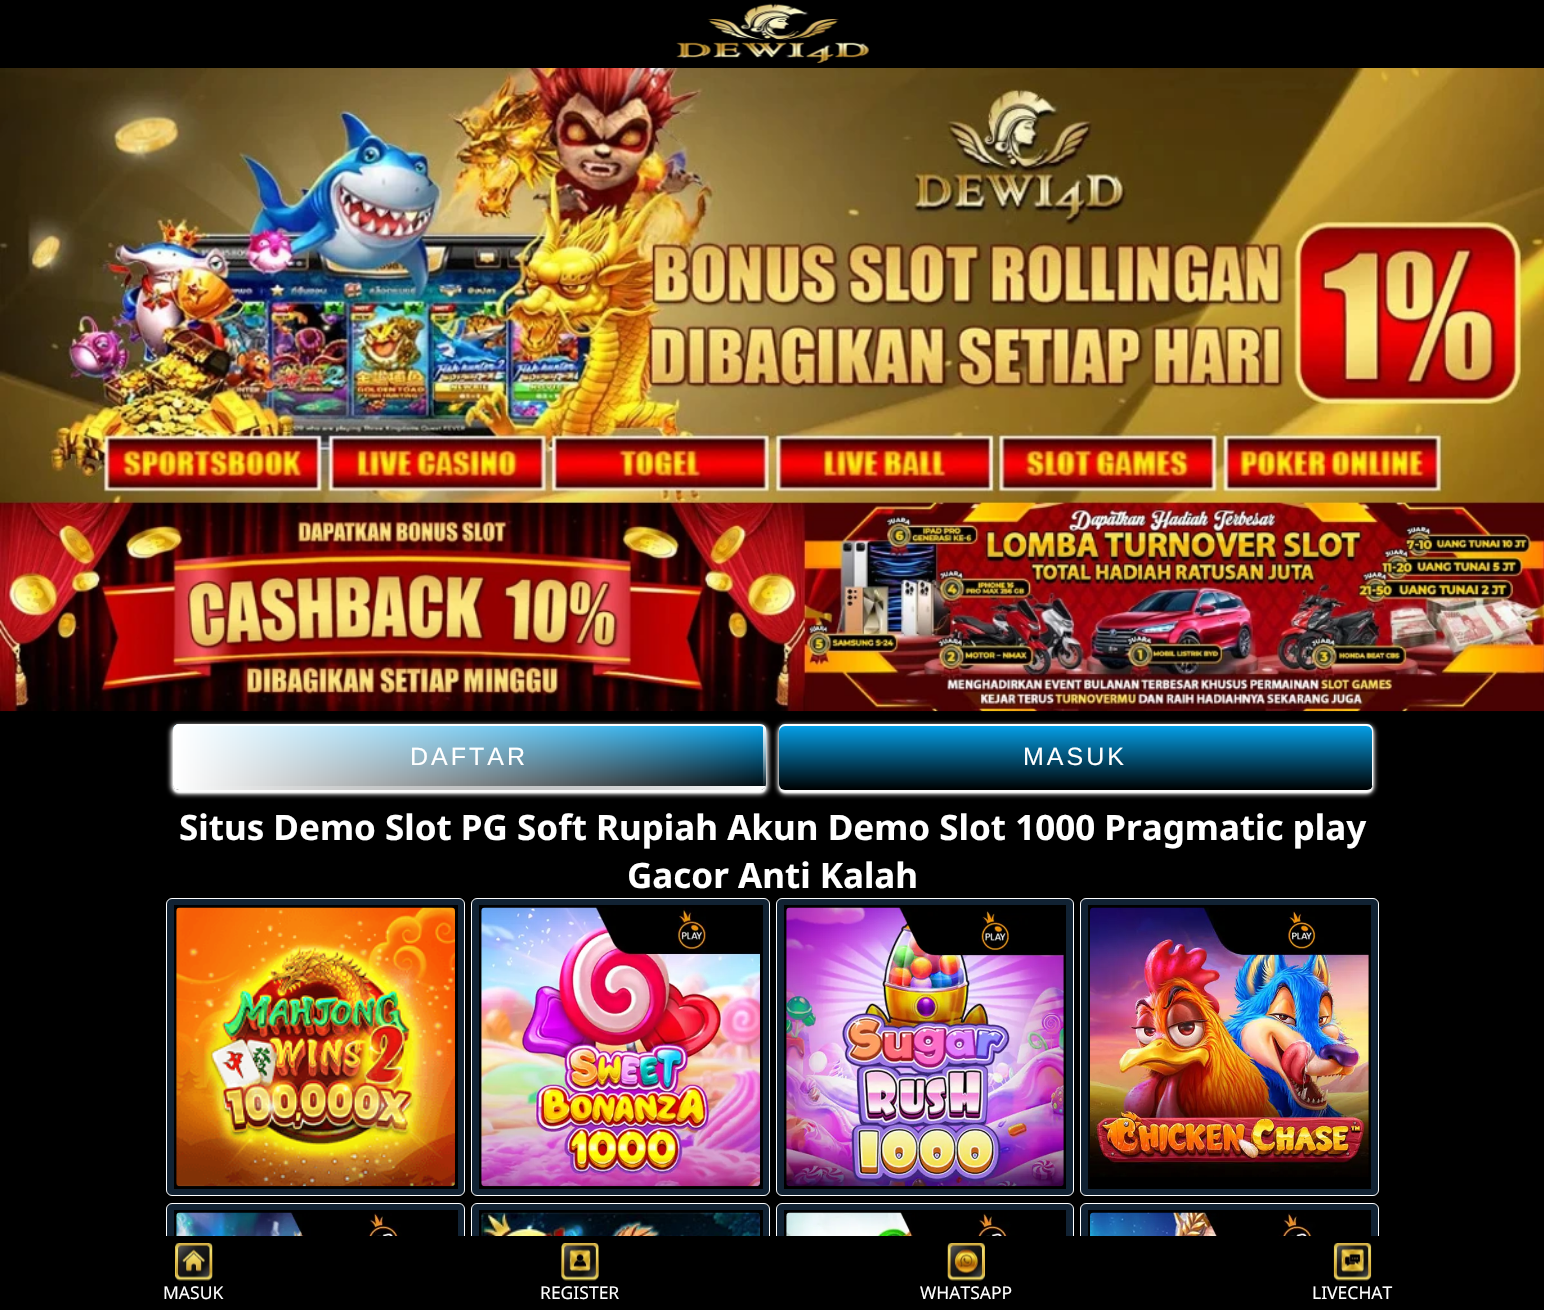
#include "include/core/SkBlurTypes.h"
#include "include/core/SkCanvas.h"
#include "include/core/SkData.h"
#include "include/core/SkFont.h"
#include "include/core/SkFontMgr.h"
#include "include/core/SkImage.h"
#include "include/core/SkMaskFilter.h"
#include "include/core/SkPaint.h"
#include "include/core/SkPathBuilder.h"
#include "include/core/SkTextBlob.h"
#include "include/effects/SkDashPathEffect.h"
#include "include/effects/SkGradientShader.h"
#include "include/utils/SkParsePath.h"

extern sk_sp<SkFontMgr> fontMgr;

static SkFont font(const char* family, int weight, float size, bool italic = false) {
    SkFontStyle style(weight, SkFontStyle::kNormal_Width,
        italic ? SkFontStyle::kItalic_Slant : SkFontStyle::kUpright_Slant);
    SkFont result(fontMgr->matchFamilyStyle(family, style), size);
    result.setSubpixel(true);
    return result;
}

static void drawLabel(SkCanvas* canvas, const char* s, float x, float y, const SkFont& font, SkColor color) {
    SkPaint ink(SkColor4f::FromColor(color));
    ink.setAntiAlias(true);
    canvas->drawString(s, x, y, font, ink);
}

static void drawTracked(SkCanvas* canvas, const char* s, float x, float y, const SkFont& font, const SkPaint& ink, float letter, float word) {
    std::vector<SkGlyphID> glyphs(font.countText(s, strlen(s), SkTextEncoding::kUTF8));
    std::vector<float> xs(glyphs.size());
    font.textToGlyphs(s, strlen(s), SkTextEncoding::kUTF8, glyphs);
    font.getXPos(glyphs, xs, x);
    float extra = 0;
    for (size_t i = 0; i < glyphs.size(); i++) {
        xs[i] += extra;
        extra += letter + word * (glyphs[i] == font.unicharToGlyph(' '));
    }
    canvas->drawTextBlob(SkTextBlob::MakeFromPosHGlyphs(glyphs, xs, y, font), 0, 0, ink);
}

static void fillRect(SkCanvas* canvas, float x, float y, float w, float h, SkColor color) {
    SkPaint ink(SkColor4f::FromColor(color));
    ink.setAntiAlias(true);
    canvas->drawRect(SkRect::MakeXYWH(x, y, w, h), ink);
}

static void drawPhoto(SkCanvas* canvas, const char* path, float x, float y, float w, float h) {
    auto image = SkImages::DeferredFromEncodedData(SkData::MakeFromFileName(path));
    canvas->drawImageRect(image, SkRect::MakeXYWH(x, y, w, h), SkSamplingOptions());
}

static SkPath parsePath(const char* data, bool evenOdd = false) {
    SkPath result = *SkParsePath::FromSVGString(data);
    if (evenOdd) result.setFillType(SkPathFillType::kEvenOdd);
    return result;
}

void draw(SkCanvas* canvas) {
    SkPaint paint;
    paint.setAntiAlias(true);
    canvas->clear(0xFF000000);
    drawPhoto(canvas, "assets/img1.png", 676, 3, 194, 61);
    drawPhoto(canvas, "assets/img2.png", 0, 68, 1544, 644);
    paint.setColor(0xFFFFFFFF);
    paint.setMaskFilter(SkMaskFilter::MakeBlur(kNormal_SkBlurStyle, 2.5f));
    canvas->drawRoundRect(SkRect::MakeXYWH(171, 725, 597, 69), 8, 8, paint);
    paint.setMaskFilter(nullptr);
    paint.setMaskFilter(SkMaskFilter::MakeBlur(kNormal_SkBlurStyle, 1));
    canvas->drawRoundRect(SkRect::MakeXYWH(173, 726, 593, 67), 6, 6, paint);
    paint.setMaskFilter(nullptr);
    {
        const SkColor colors[] = {0xFF05A4EE, 0xFF000000};
        const float stops[] = {0, 1};
        const SkPoint ends[] = {{469, 724}, {469, 790}};
        paint.setShader(SkGradientShader::MakeLinear(ends, colors, stops, 2, SkTileMode::kClamp));
        paint.setAlpha(255);
    }
    canvas->drawRoundRect(SkRect::MakeXYWH(173, 724, 593, 66), 6, 6, paint);
    paint.setShader(nullptr);
    paint.setColor(0xFFFFFFFF);
    canvas->drawPath(parsePath("M179 726H760C763 726 766 729 766 732V730C766 727 763 724 760 724H179C176 724 174 726 173 729C174 727 176 726 179 726Z"), paint);
    SkFont font1 = font("Liberation Sans", 400, 25);
    drawTracked(canvas, "DAFTAR", 410, 765, font1, paint, 3, 0);
    {
        const SkColor colors[] = {0x00FFFFFF, 0xFFFFFFFF};
        const float stops[] = {0, 1};
        const SkPoint ends[] = {{766, 761}, {173, 761}};
        paint.setShader(SkGradientShader::MakeLinear(ends, colors, stops, 2, SkTileMode::kClamp));
        paint.setAlpha(255);
    }
    canvas->drawRoundRect(SkRect::MakeXYWH(173, 724, 593, 66), 6, 6, paint);
    canvas->save();
    canvas->clipPath(parsePath("M179 724H760C763.5 724 766 726.5 766 730V784C766 787.5 763.5 790 760 790H179C175.5 790 173 787.5 173 784V730C173 726.5 175.5 724 179 724Z"), true);
    {
        const SkColor colors[] = {0x00FFFFFF, 0xFFFFFFFF};
        const float stops[] = {0, 1};
        const SkPoint ends[] = {{174, 724}, {174, 790}};
        paint.setShader(SkGradientShader::MakeLinear(ends, colors, stops, 2, SkTileMode::kClamp));
        paint.setAlpha(255);
    }
    canvas->drawRect(SkRect::MakeXYWH(173, 724, 4, 66), paint);
    {
        const SkColor colors[] = {0x00FFFFFF, 0xFFFFFFFF};
        const float stops[] = {0, 1};
        const SkPoint ends[] = {{764, 790}, {764, 724}};
        paint.setShader(SkGradientShader::MakeLinear(ends, colors, stops, 2, SkTileMode::kClamp));
        paint.setAlpha(255);
    }
    canvas->drawRect(SkRect::MakeXYWH(763, 724, 3, 66), paint);
    {
        const SkColor colors[] = {0x00FFFFFF, 0xFFFFFFFF};
        const float stops[] = {0, 1};
        const SkPoint ends[] = {{173, 788}, {766, 788}};
        paint.setShader(SkGradientShader::MakeLinear(ends, colors, stops, 2, SkTileMode::kClamp));
        paint.setAlpha(255);
    }
    canvas->drawRect(SkRect::MakeXYWH(186, 786, 580, 4), paint);
    canvas->restore();
    paint.setShader(nullptr);
    paint.setColor(0xFFFFFFFF);
    paint.setMaskFilter(SkMaskFilter::MakeBlur(kNormal_SkBlurStyle, 2.5f));
    canvas->drawRoundRect(SkRect::MakeXYWH(778, 725, 596, 69), 8, 8, paint);
    paint.setMaskFilter(nullptr);
    paint.setMaskFilter(SkMaskFilter::MakeBlur(kNormal_SkBlurStyle, 1));
    canvas->drawRoundRect(SkRect::MakeXYWH(779, 726, 594, 67), 6, 6, paint);
    paint.setMaskFilter(nullptr);
    {
        const SkColor colors[] = {0xFF05A4EE, 0xFF000000};
        const float stops[] = {0, 1};
        const SkPoint ends[] = {{1076, 724}, {1076, 790}};
        paint.setShader(SkGradientShader::MakeLinear(ends, colors, stops, 2, SkTileMode::kClamp));
        paint.setAlpha(255);
    }
    canvas->drawRoundRect(SkRect::MakeXYWH(779, 724, 594, 66), 6, 6, paint);
    paint.setShader(nullptr);
    paint.setColor(0xFFFFFFFF);
    canvas->drawPath(parsePath("M785 726H1366C1370 726 1372 729 1372 732V787C1373 786 1373 785 1373 784V730C1373 727 1370 724 1367 724H785C782 724 779 727 779 730V732C779 729 782 726 785 726Z"), paint);
    drawTracked(canvas, "MASUK", 1023, 765, font1, paint, 3, 0);
    SkFont font2 = font("Noto Sans", 700, 35);
    drawLabel(canvas, "Situs Demo Slot PG Soft Rupiah Akun Demo Slot 1000 Pragmatic play", 179, 840, font2, 0xFFFFFFFF);
    drawLabel(canvas, "Gacor Anti Kalah", 627, 888, font2, 0xFFFFFFFF);
    paint.setColor(0xFF112233);
    canvas->drawRoundRect(SkRect::MakeXYWH(166.5f, 898.5f, 298, 297), 5.5f, 5.5f, paint);
    paint.setStroke(true);
    paint.setStrokeWidth(1);
    paint.setColor(0xFFFFFFFF);
    canvas->drawRoundRect(SkRect::MakeXYWH(166.5f, 898.5f, 298, 297), 5.5f, 5.5f, paint);
    fillRect(canvas, 174, 905, 284, 284, 0xFF000000);
    drawPhoto(canvas, "assets/img3.png", 176, 907, 279, 280);
    paint.setStroke(false);
    paint.setColor(0xFF112233);
    canvas->drawRoundRect(SkRect::MakeXYWH(471.5f, 898.5f, 298, 297), 5.5f, 5.5f, paint);
    paint.setStroke(true);
    paint.setColor(0xFFFFFFFF);
    canvas->drawRoundRect(SkRect::MakeXYWH(471.5f, 898.5f, 298, 297), 5.5f, 5.5f, paint);
    fillRect(canvas, 479, 905, 284, 284, 0xFF000000);
    drawPhoto(canvas, "assets/img4.png", 481, 907, 279, 280);
    paint.setStroke(false);
    paint.setColor(0xFF112233);
    canvas->drawRoundRect(SkRect::MakeXYWH(776.5f, 898.5f, 297, 297), 5.5f, 5.5f, paint);
    paint.setStroke(true);
    paint.setColor(0xFFFFFFFF);
    canvas->drawRoundRect(SkRect::MakeXYWH(776.5f, 898.5f, 297, 297), 5.5f, 5.5f, paint);
    fillRect(canvas, 784, 905, 282, 284, 0xFF000000);
    drawPhoto(canvas, "assets/img5.png", 786, 907, 278, 280);
    paint.setStroke(false);
    paint.setColor(0xFF112233);
    canvas->drawRoundRect(SkRect::MakeXYWH(1080.5f, 898.5f, 298, 297), 5.5f, 5.5f, paint);
    paint.setStroke(true);
    paint.setColor(0xFFFFFFFF);
    canvas->drawRoundRect(SkRect::MakeXYWH(1080.5f, 898.5f, 298, 297), 5.5f, 5.5f, paint);
    fillRect(canvas, 1088, 905, 283, 284, 0xFF000000);
    drawPhoto(canvas, "assets/img6.png", 1090, 907, 279, 270);
    paint.setStroke(false);
    paint.setColor(0xFF112233);
    canvas->drawRoundRect(SkRect::MakeXYWH(166.5f, 1203.5f, 298, 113), 5.5f, 5.5f, paint);
    paint.setStroke(true);
    paint.setColor(0xFFFFFFFF);
    canvas->drawRoundRect(SkRect::MakeXYWH(166.5f, 1203.5f, 298, 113), 5.5f, 5.5f, paint);
    fillRect(canvas, 174, 1210, 284, 26, 0xFF000000);
    drawPhoto(canvas, "assets/img7.png", 176, 1212, 279, 24);
    paint.setStroke(false);
    paint.setColor(0xFF112233);
    canvas->drawRoundRect(SkRect::MakeXYWH(471.5f, 1203.5f, 298, 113), 5.5f, 5.5f, paint);
    paint.setStroke(true);
    paint.setColor(0xFFFFFFFF);
    canvas->drawRoundRect(SkRect::MakeXYWH(471.5f, 1203.5f, 298, 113), 5.5f, 5.5f, paint);
    fillRect(canvas, 479, 1210, 284, 26, 0xFF000000);
    drawPhoto(canvas, "assets/img8.png", 481, 1212, 279, 24);
    paint.setStroke(false);
    paint.setColor(0xFF112233);
    canvas->drawRoundRect(SkRect::MakeXYWH(776.5f, 1203.5f, 297, 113), 5.5f, 5.5f, paint);
    paint.setStroke(true);
    paint.setColor(0xFFFFFFFF);
    canvas->drawRoundRect(SkRect::MakeXYWH(776.5f, 1203.5f, 297, 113), 5.5f, 5.5f, paint);
    fillRect(canvas, 784, 1210, 282, 26, 0xFF000000);
    drawPhoto(canvas, "assets/img9.png", 786, 1212, 278, 24);
    paint.setStroke(false);
    paint.setColor(0xFF112233);
    canvas->drawRoundRect(SkRect::MakeXYWH(1080.5f, 1203.5f, 298, 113), 5.5f, 5.5f, paint);
    paint.setStroke(true);
    paint.setColor(0xFFFFFFFF);
    canvas->drawRoundRect(SkRect::MakeXYWH(1080.5f, 1203.5f, 298, 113), 5.5f, 5.5f, paint);
    fillRect(canvas, 1088, 1210, 283, 26, 0xFF000000);
    drawPhoto(canvas, "assets/img10.png", 1090, 1212, 279, 24);
    fillRect(canvas, 166, 1236, 1213, 74, 0xFF000000);
    drawPhoto(canvas, "assets/img11.png", 175, 1243, 38, 38);
    SkFont font3 = font("Noto Sans", 400, 17.5f);
    drawLabel(canvas, "MASUK", 163, 1299, font3, 0xFFFFFFFF);
    drawPhoto(canvas, "assets/img12.png", 561, 1243, 38, 38);
    drawLabel(canvas, "REGISTER", 540, 1299, font3, 0xFFFFFFFF);
    drawPhoto(canvas, "assets/img13.png", 947, 1243, 38, 38);
    drawLabel(canvas, "WHATSAPP", 920, 1299, font3, 0xFFFFFFFF);
    drawPhoto(canvas, "assets/img14.png", 1333, 1243, 39, 38);
    drawLabel(canvas, "LIVECHAT", 1312, 1299, font3, 0xFFFFFFFF);
}
